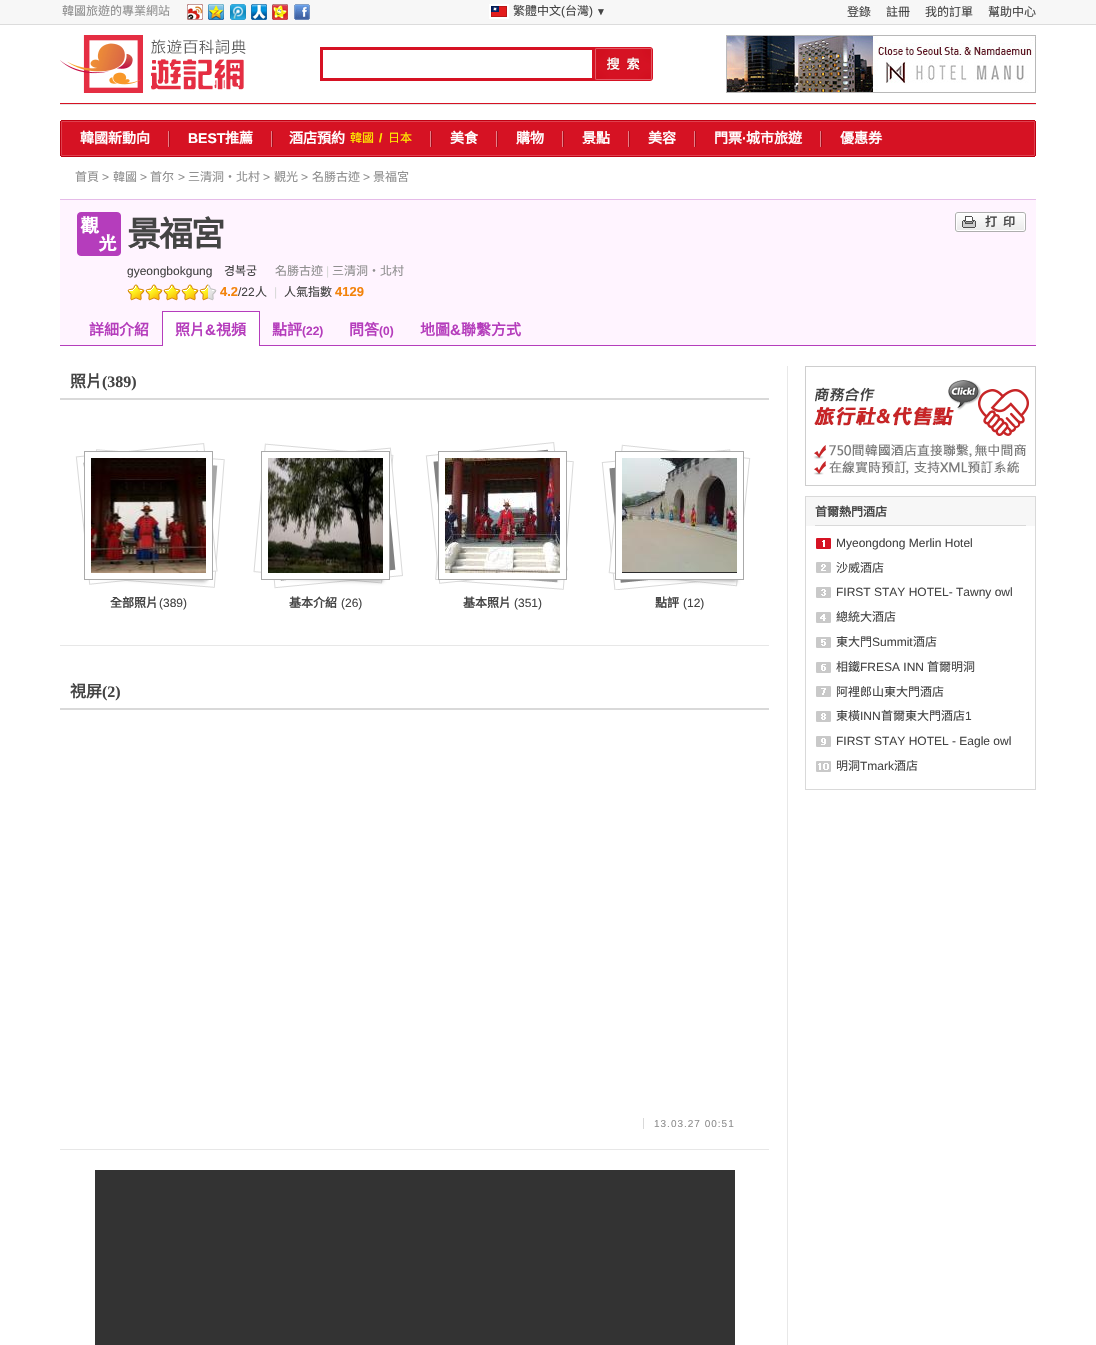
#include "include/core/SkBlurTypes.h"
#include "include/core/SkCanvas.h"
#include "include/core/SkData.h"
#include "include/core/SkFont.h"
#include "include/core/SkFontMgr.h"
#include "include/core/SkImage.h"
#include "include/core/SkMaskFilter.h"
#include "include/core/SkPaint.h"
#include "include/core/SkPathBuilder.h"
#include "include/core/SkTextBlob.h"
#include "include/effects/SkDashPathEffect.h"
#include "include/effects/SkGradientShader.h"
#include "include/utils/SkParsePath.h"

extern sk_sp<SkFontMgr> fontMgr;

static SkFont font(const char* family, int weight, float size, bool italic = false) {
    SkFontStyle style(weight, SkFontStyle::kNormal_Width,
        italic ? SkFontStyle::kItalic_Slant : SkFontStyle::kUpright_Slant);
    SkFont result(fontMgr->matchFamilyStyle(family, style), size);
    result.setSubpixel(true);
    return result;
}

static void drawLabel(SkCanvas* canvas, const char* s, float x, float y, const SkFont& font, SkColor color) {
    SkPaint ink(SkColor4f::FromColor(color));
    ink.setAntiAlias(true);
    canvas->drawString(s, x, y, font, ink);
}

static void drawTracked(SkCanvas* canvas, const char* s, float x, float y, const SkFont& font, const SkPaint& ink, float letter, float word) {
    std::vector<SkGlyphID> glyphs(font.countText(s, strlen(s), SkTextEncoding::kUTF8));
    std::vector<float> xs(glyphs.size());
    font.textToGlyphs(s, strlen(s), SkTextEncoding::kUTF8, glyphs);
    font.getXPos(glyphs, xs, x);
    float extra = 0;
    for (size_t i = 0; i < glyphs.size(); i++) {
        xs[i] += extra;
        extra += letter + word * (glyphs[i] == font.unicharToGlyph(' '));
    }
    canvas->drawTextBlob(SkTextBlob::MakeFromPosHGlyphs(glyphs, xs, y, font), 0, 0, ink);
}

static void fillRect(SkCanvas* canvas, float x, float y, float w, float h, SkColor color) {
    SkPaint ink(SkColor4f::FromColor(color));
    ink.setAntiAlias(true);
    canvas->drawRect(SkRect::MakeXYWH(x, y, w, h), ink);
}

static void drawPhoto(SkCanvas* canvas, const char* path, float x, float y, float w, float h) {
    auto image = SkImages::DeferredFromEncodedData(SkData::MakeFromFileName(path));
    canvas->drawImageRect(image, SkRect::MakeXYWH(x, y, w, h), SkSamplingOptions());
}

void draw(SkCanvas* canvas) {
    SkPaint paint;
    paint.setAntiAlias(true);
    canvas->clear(0xFFFFFFFF);
    fillRect(canvas, 0, 0, 1096, 24, 0xFFF7F7F7);
    fillRect(canvas, 0, 24, 1096, 1, 0xFFDCDCDC);
    SkFont font1 = font("Noto Sans CJK TC", 400, 12);
    drawLabel(canvas, "韓國旅遊的專業網站", 62, 15, font1, 0xFF8F8F8F);
    drawPhoto(canvas, "assets/img1.png", 187, 4, 16, 16);
    drawPhoto(canvas, "assets/img2.png", 208, 4, 16, 16);
    drawPhoto(canvas, "assets/img3.png", 230, 4, 16, 16);
    drawPhoto(canvas, "assets/img4.png", 251, 4, 16, 16);
    drawPhoto(canvas, "assets/img5.png", 272, 4, 16, 16);
    drawPhoto(canvas, "assets/img6.png", 294, 4, 16, 16);
    drawPhoto(canvas, "assets/img7.png", 489, 4, 20, 15);
    drawLabel(canvas, "繁體中文", 513, 15, font1, 0xFF444444);
    SkFont font2 = font("Liberation Sans", 400, 12);
    drawLabel(canvas, "(", 561, 15, font2, 0xFF444444);
    drawLabel(canvas, "台灣", 565, 15, font1, 0xFF444444);
    drawLabel(canvas, ")", 589, 15, font2, 0xFF444444);
    SkFont font3 = font("Liberation Sans", 400, 10);
    drawLabel(canvas, "▼", 596, 15, font3, 0xFF444444);
    drawLabel(canvas, "登錄", 847, 16, font1, 0xFF444444);
    drawLabel(canvas, "註冊", 886, 16, font1, 0xFF444444);
    drawLabel(canvas, "我的訂單", 925, 16, font1, 0xFF444444);
    drawLabel(canvas, "幫助中心", 988, 16, font1, 0xFF444444);
    fillRect(canvas, 60, 103, 976, 1, 0xFFD61223);
    drawPhoto(canvas, "assets/img8.png", 60, 35, 186, 58);
    paint.setStroke(true);
    paint.setStrokeWidth(3);
    paint.setColor(0xFFD61223);
    canvas->drawRect(SkRect::MakeXYWH(321.5f, 48.5f, 272, 31), paint);
    drawPhoto(canvas, "assets/img9.png", 595, 47, 58, 34);
    drawPhoto(canvas, "assets/img10.png", 726, 35, 310, 58);
    fillRect(canvas, 60, 104, 976, 1, 0xFFE5E5E5);
    drawPhoto(canvas, "assets/img11.png", 60, 120, 2, 37);
    drawPhoto(canvas, "assets/img12.png", 62, 120, 972, 37);
    SkFont font4 = font("Noto Sans CJK TC", 700, 14);
    drawLabel(canvas, "韓國新動向", 80, 143, font4, 0xFFFFFFFF);
    drawPhoto(canvas, "assets/img13.png", 168, 131, 2, 16);
    SkFont font5 = font("Liberation Sans", 700, 14);
    drawLabel(canvas, "BEST", 188, 143, font5, 0xFFFFFFFF);
    drawLabel(canvas, "推薦", 225, 143, font4, 0xFFFFFFFF);
    drawPhoto(canvas, "assets/img13.png", 271, 131, 2, 16);
    drawLabel(canvas, "酒店預約", 289, 143, font4, 0xFFFFFFFF);
    drawLabel(canvas, "韓國", 350, 142, font1, 0xFFFFF000);
    SkFont font6 = font("Liberation Sans", 700, 12);
    drawLabel(canvas, "/", 379, 142, font6, 0xFFFFF000);
    drawLabel(canvas, "日本", 388, 142, font1, 0xFFFFF000);
    drawPhoto(canvas, "assets/img13.png", 430, 131, 2, 16);
    drawLabel(canvas, "美食", 450, 143, font4, 0xFFFFFFFF);
    drawPhoto(canvas, "assets/img13.png", 496, 131, 2, 16);
    drawLabel(canvas, "購物", 516, 143, font4, 0xFFFFFFFF);
    drawPhoto(canvas, "assets/img13.png", 562, 131, 2, 16);
    drawLabel(canvas, "景點", 582, 143, font4, 0xFFFFFFFF);
    drawPhoto(canvas, "assets/img13.png", 628, 131, 2, 16);
    drawLabel(canvas, "美容", 648, 143, font4, 0xFFFFFFFF);
    drawPhoto(canvas, "assets/img13.png", 694, 131, 2, 16);
    drawLabel(canvas, "門票", 714, 143, font4, 0xFFFFFFFF);
    drawLabel(canvas, "·", 742, 143, font5, 0xFFFFFFFF);
    drawLabel(canvas, "城市旅遊", 746, 143, font4, 0xFFFFFFFF);
    drawPhoto(canvas, "assets/img13.png", 820, 131, 2, 16);
    drawLabel(canvas, "優惠券", 840, 143, font4, 0xFFFFFFFF);
    drawPhoto(canvas, "assets/img14.png", 1034, 120, 2, 37);
    drawLabel(canvas, "首頁", 75, 181, font1, 0xFF8F8F8F);
    drawLabel(canvas, ">", 102, 181, font2, 0xFF8F8F8F);
    drawLabel(canvas, "韓國", 113, 181, font1, 0xFF8F8F8F);
    drawLabel(canvas, ">", 140, 181, font2, 0xFF8F8F8F);
    drawLabel(canvas, "首尔", 150, 181, font1, 0xFF8F8F8F);
    drawLabel(canvas, ">", 178, 181, font2, 0xFF8F8F8F);
    drawLabel(canvas, "三清洞・北村", 188, 181, font1, 0xFF8F8F8F);
    drawLabel(canvas, ">", 263, 181, font2, 0xFF8F8F8F);
    drawLabel(canvas, "觀光", 274, 181, font1, 0xFF8F8F8F);
    drawLabel(canvas, ">", 301, 181, font2, 0xFF8F8F8F);
    drawLabel(canvas, "名勝古迹", 312, 181, font1, 0xFF8F8F8F);
    drawLabel(canvas, ">", 363, 181, font2, 0xFF8F8F8F);
    drawLabel(canvas, "景福宮", 373, 181, font1, 0xFF8F8F8F);
    fillRect(canvas, 60, 200, 976, 145, 0xFFFFF4FF);
    fillRect(canvas, 60, 199, 976, 1, 0xFFE5BBE8);
    fillRect(canvas, 60, 345, 976, 1, 0xFFB53DBC);
    drawPhoto(canvas, "assets/img15.png", 77, 212, 44, 44);
    SkFont font7 = font("Noto Sans CJK TC", 700, 34);
    paint.setStroke(false);
    paint.setColor(0xFF444444);
    drawTracked(canvas, "景福宮", 127, 246, font7, paint, -2, 0);
    drawLabel(canvas, "gyeongbokgung", 127, 275, font2, 0xFF444444);
    drawLabel(canvas, "경복궁", 224, 275, font1, 0xFF444444);
    drawLabel(canvas, "名勝古迹", 275, 275, font1, 0xFF8F8F8F);
    drawLabel(canvas, "|", 326, 275, font2, 0xFFD9D9D9);
    drawLabel(canvas, "三清洞・北村", 332, 275, font1, 0xFF8F8F8F);
    drawPhoto(canvas, "assets/img16.png", 127, 284, 9, 17);
    drawPhoto(canvas, "assets/img17.png", 136, 284, 9, 17);
    drawPhoto(canvas, "assets/img16.png", 145, 284, 9, 17);
    drawPhoto(canvas, "assets/img17.png", 154, 284, 9, 17);
    drawPhoto(canvas, "assets/img16.png", 163, 284, 9, 17);
    drawPhoto(canvas, "assets/img17.png", 172, 284, 9, 17);
    drawPhoto(canvas, "assets/img16.png", 181, 284, 9, 17);
    drawPhoto(canvas, "assets/img17.png", 190, 284, 9, 17);
    drawPhoto(canvas, "assets/img16.png", 199, 284, 9, 17);
    drawPhoto(canvas, "assets/img18.png", 208, 284, 9, 17);
    SkFont font8 = font("Liberation Sans", 700, 13);
    drawLabel(canvas, "4.2", 220, 296, font8, 0xFFF3830B);
    drawLabel(canvas, "/22", 238, 296, font2, 0xFF444444);
    drawLabel(canvas, "人", 255, 296, font1, 0xFF444444);
    drawLabel(canvas, "|", 274, 296, font2, 0xFFD9D9D9);
    drawLabel(canvas, "人氣指數", 284, 296, font1, 0xFF444444);
    drawLabel(canvas, "4129", 335, 296, font8, 0xFFF3830B);
    drawPhoto(canvas, "assets/img19.png", 955, 212, 71, 20);
    SkFont font9 = font("Noto Sans CJK TC", 700, 12);
    drawTracked(canvas, "打印", 985, 226, font9, paint, 6, 0);
    SkFont font10 = font("Noto Sans CJK TC", 700, 15);
    drawLabel(canvas, "詳細介紹", 89, 335, font10, 0xFFB53DBC);
    fillRect(canvas, 163, 312, 96, 34, 0xFFFFFFFF);
    fillRect(canvas, 162, 311, 98, 1, 0xFFB53DBC);
    fillRect(canvas, 259, 311, 1, 35, 0xFFB53DBC);
    fillRect(canvas, 162, 311, 1, 35, 0xFFB53DBC);
    drawLabel(canvas, "照片", 175, 335, font10, 0xFFB53DBC);
    SkFont font11 = font("Liberation Sans", 700, 15);
    drawLabel(canvas, "&", 205, 335, font11, 0xFFB53DBC);
    drawLabel(canvas, "視頻", 216, 335, font10, 0xFFB53DBC);
    drawLabel(canvas, "點評", 272, 335, font10, 0xFFB53DBC);
    drawLabel(canvas, "(22)", 302, 335, font6, 0xFFB53DBC);
    drawLabel(canvas, "問答", 349, 335, font10, 0xFFB53DBC);
    drawLabel(canvas, "(0)", 379, 335, font6, 0xFFB53DBC);
    drawLabel(canvas, "地圖", 420, 335, font10, 0xFFB53DBC);
    drawLabel(canvas, "&", 450, 335, font11, 0xFFB53DBC);
    drawLabel(canvas, "聯繫方式", 461, 335, font10, 0xFFB53DBC);
    fillRect(canvas, 787, 366, 1, 979, 0xFFE8E8E8);
    fillRect(canvas, 60, 645, 709, 1, 0xFFE7E7E7);
    fillRect(canvas, 60, 398, 709, 2, 0xFFD9D9D9);
    SkFont font12 = font("Noto Sans CJK TC", 700, 16);
    drawLabel(canvas, "照片", 70, 387, font12, 0xFF444444);
    SkFont font13 = font("Liberation Serif", 700, 16);
    drawLabel(canvas, "(389)", 102, 387, font13, 0xFF444444);
    drawPhoto(canvas, "assets/img20.png", 75, 443, 150, 145);
    paint.setColor(0xFFFFFFFF);
    canvas->drawRect(SkRect::MakeXYWH(84.5f, 451.5f, 128, 128), paint);
    paint.setStroke(true);
    paint.setStrokeWidth(1);
    paint.setColor(0xFFAAAAAA);
    canvas->drawRect(SkRect::MakeXYWH(84.5f, 451.5f, 128, 128), paint);
    drawPhoto(canvas, "assets/img21.png", 91, 458, 115, 115);
    drawLabel(canvas, "全部照片", 110, 607, font9, 0xFF444444);
    drawLabel(canvas, "(389)", 159, 607, font2, 0xFF444444);
    drawPhoto(canvas, "assets/img22.png", 253, 443, 150, 146);
    paint.setStroke(false);
    paint.setColor(0xFFFFFFFF);
    canvas->drawRect(SkRect::MakeXYWH(261.5f, 451.5f, 128, 128), paint);
    paint.setStroke(true);
    paint.setColor(0xFFAAAAAA);
    canvas->drawRect(SkRect::MakeXYWH(261.5f, 451.5f, 128, 128), paint);
    drawPhoto(canvas, "assets/img23.png", 268, 458, 115, 115);
    drawLabel(canvas, "基本介紹", 289, 607, font9, 0xFF444444);
    drawLabel(canvas, "(26)", 341, 607, font2, 0xFF444444);
    drawPhoto(canvas, "assets/img24.png", 425, 442, 149, 148);
    paint.setStroke(false);
    paint.setColor(0xFFFFFFFF);
    canvas->drawRect(SkRect::MakeXYWH(438.5f, 451.5f, 128, 128), paint);
    paint.setStroke(true);
    paint.setColor(0xFFAAAAAA);
    canvas->drawRect(SkRect::MakeXYWH(438.5f, 451.5f, 128, 128), paint);
    drawPhoto(canvas, "assets/img25.png", 445, 458, 115, 115);
    drawLabel(canvas, "基本照片", 463, 607, font9, 0xFF444444);
    drawLabel(canvas, "(351)", 514, 607, font2, 0xFF444444);
    drawPhoto(canvas, "assets/img26.png", 601, 444, 150, 146);
    paint.setStroke(false);
    paint.setColor(0xFFFFFFFF);
    canvas->drawRect(SkRect::MakeXYWH(615.5f, 451.5f, 128, 128), paint);
    paint.setStroke(true);
    paint.setColor(0xFFAAAAAA);
    canvas->drawRect(SkRect::MakeXYWH(615.5f, 451.5f, 128, 128), paint);
    fillRect(canvas, 622, 572, 115, 1, 0xFF2D2D2D);
    drawPhoto(canvas, "assets/img27.png", 622, 458, 115, 114);
    drawLabel(canvas, "點評", 655, 607, font9, 0xFF444444);
    drawLabel(canvas, "(12)", 683, 607, font2, 0xFF444444);
    fillRect(canvas, 60, 708, 709, 2, 0xFFD9D9D9);
    drawLabel(canvas, "視屏", 70, 697, font12, 0xFF444444);
    drawLabel(canvas, "(2)", 102, 697, font13, 0xFF444444);
    fillRect(canvas, 60, 1149, 709, 1, 0xFFE7E7E7);
    fillRect(canvas, 643, 1118, 1, 11, 0xFFD9D9D9);
    paint.setStroke(false);
    paint.setColor(0xFF8F8F8F);
    drawTracked(canvas, "13.03.27 00:51", 654, 1127, font3, paint, 1, 0);
    fillRect(canvas, 95, 1170, 640, 175, 0xFF333333);
    drawPhoto(canvas, "assets/img28.png", 805, 366, 231, 120);
    paint.setStroke(true);
    paint.setColor(0xFFD9D9D9);
    canvas->drawRect(SkRect::MakeXYWH(805.5f, 496.5f, 230, 293), paint);
    fillRect(canvas, 806, 497, 229, 29, 0xFFF7F7F7);
    fillRect(canvas, 815, 525, 211, 1, 0xFFD9D9D9);
    drawLabel(canvas, "首爾熱門酒店", 815, 516, font9, 0xFF444444);
    drawPhoto(canvas, "assets/img29.png", 816, 538, 15, 11);
    drawLabel(canvas, "Myeongdong Merlin Hotel", 836, 547, font2, 0xFF444444);
    drawPhoto(canvas, "assets/img30.png", 816, 562, 15, 11);
    drawLabel(canvas, "沙威酒店", 836, 572, font1, 0xFF444444);
    drawPhoto(canvas, "assets/img31.png", 816, 587, 15, 11);
    drawLabel(canvas, "FIRST STAY HOTEL- Tawny owl", 836, 596, font2, 0xFF444444);
    drawPhoto(canvas, "assets/img32.png", 816, 612, 15, 11);
    drawLabel(canvas, "總統大酒店", 836, 621, font1, 0xFF444444);
    drawPhoto(canvas, "assets/img33.png", 816, 637, 15, 11);
    drawLabel(canvas, "東大門", 836, 646, font1, 0xFF444444);
    drawLabel(canvas, "Summit", 872, 646, font2, 0xFF444444);
    drawLabel(canvas, "酒店", 913, 646, font1, 0xFF444444);
    drawPhoto(canvas, "assets/img34.png", 816, 662, 15, 11);
    drawLabel(canvas, "相鐵", 836, 671, font1, 0xFF444444);
    drawLabel(canvas, "FRESA INN", 860, 671, font2, 0xFF444444);
    drawLabel(canvas, "首爾明洞", 927, 671, font1, 0xFF444444);
    drawPhoto(canvas, "assets/img35.png", 816, 686, 15, 11);
    drawLabel(canvas, "阿裡郎山東大門酒店", 836, 696, font1, 0xFF444444);
    drawPhoto(canvas, "assets/img36.png", 816, 711, 15, 11);
    drawLabel(canvas, "東橫", 836, 720, font1, 0xFF444444);
    drawLabel(canvas, "INN", 860, 720, font2, 0xFF444444);
    drawLabel(canvas, "首爾東大門酒店", 881, 720, font1, 0xFF444444);
    drawLabel(canvas, "1", 965, 720, font2, 0xFF444444);
    drawPhoto(canvas, "assets/img37.png", 816, 736, 15, 11);
    drawLabel(canvas, "FIRST STAY HOTEL - Eagle owl", 836, 745, font2, 0xFF444444);
    drawPhoto(canvas, "assets/img38.png", 816, 761, 15, 11);
    drawLabel(canvas, "明洞", 836, 770, font1, 0xFF444444);
    drawLabel(canvas, "Tmark", 860, 770, font2, 0xFF444444);
    drawLabel(canvas, "酒店", 894, 770, font1, 0xFF444444);
}
